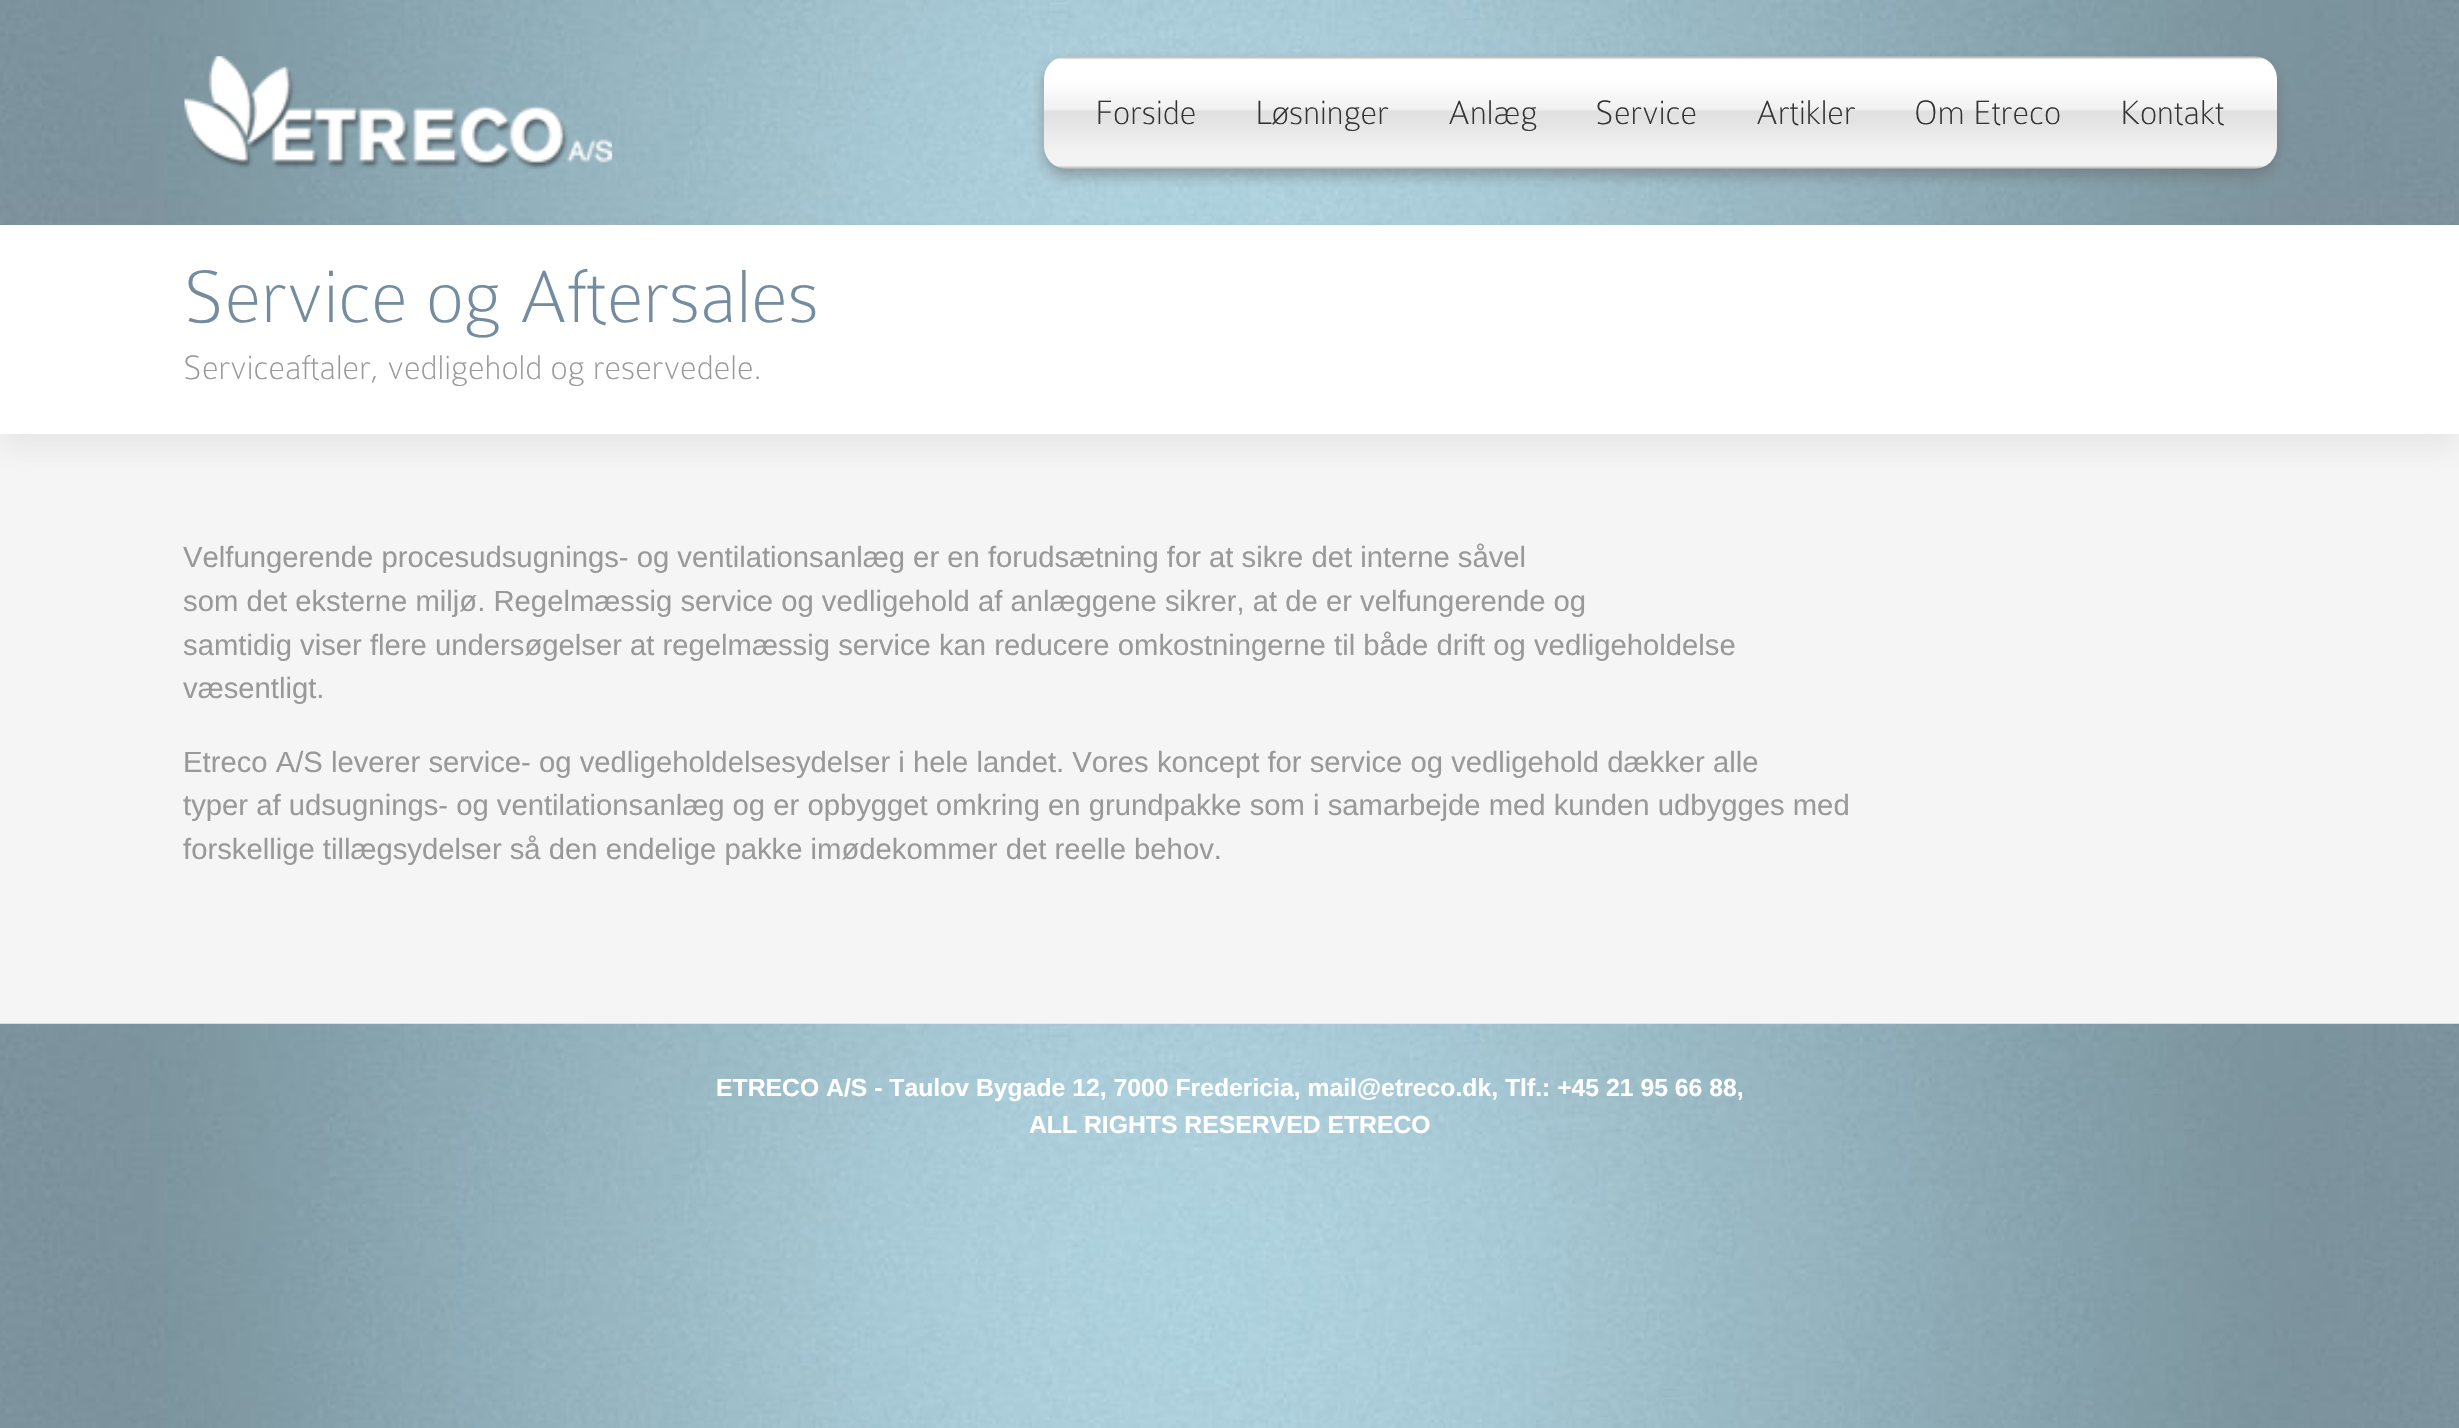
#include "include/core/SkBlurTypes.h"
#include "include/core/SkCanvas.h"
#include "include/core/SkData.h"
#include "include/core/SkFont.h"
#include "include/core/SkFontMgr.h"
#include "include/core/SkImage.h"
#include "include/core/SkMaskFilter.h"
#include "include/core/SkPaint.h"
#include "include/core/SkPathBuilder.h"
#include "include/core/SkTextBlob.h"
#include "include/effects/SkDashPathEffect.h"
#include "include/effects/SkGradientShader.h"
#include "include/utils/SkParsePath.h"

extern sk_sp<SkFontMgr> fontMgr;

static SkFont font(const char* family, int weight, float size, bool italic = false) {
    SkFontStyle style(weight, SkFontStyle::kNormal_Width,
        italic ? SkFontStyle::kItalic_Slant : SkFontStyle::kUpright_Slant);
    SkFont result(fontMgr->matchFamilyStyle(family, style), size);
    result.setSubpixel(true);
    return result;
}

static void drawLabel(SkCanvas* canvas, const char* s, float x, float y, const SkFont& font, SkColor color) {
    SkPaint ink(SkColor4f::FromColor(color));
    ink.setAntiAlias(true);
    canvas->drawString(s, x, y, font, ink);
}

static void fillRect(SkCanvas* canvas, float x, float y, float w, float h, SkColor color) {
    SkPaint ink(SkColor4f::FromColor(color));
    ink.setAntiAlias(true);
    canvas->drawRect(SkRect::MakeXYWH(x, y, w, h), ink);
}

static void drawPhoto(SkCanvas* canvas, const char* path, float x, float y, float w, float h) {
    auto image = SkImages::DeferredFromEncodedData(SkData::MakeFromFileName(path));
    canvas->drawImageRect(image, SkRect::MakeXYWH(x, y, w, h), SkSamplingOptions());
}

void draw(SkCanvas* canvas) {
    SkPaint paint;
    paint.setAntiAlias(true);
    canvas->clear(0xFFFFFFFF);
    drawPhoto(canvas, "assets/img1.png", 0, 0, 2459, 225);
    drawPhoto(canvas, "assets/img2.png", 184, 56, 428, 113);
    paint.setColor(0x80666666);
    paint.setMaskFilter(SkMaskFilter::MakeBlur(kNormal_SkBlurStyle, 7));
    canvas->drawRoundRect(SkRect::MakeXYWH(1044, 63, 1233, 113), 23, 23, paint);
    paint.setMaskFilter(nullptr);
    drawPhoto(canvas, "assets/img3.png", 1044, 56, 1233, 113);
    SkFont font1 = font("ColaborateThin", 100, 36);
    drawLabel(canvas, "Forside", 1095, 124, font1, 0xFF333333);
    drawLabel(canvas, "Løsninger", 1255, 124, font1, 0xFF333333);
    drawLabel(canvas, "Anlæg", 1448, 124, font1, 0xFF333333);
    drawLabel(canvas, "Service", 1595, 124, font1, 0xFF333333);
    drawLabel(canvas, "Artikler", 1756, 124, font1, 0xFF333333);
    drawLabel(canvas, "Om Etreco", 1914, 124, font1, 0xFF333333);
    drawLabel(canvas, "Kontakt", 2120, 124, font1, 0xFF333333);
    fillRect(canvas, 0, 434, 2459, 590, 0xFFF5F5F5);
    paint.setColor(0x1A666666);
    paint.setMaskFilter(SkMaskFilter::MakeBlur(kNormal_SkBlurStyle, 13.5f));
    canvas->drawRect(SkRect::MakeXYWH(0, 239, 2459, 209), paint);
    paint.setMaskFilter(nullptr);
    fillRect(canvas, 0, 226, 2459, 208, 0xFFFFFFFF);
    SkFont font2 = font("ColaborateThin", 100, 79.25f);
    drawLabel(canvas, "Service og Aftersales", 183, 322, font2, 0xFF738CA0);
    drawLabel(canvas, "Serviceaftaler, vedligehold og reservedele.", 183, 379, font1, 0xFF999999);
    SkFont font3 = font("Liberation Sans", 400, 29.25f);
    drawLabel(canvas, "Velfungerende procesudsugnings- og ventilationsanlæg er en forudsætning for at sikre det interne såvel", 183, 567, font3, 0xFF999999);
    drawLabel(canvas, "som det eksterne miljø. Regelmæssig service og vedligehold af anlæggene sikrer, at de er velfungerende og", 183, 611, font3, 0xFF999999);
    drawLabel(canvas, "samtidig viser flere undersøgelser at regelmæssig service kan reducere omkostningerne til både drift og vedligeholdelse", 183, 655, font3, 0xFF999999);
    drawLabel(canvas, "væsentligt.", 183, 698, font3, 0xFF999999);
    drawLabel(canvas, "Etreco A/S leverer service- og vedligeholdelsesydelser i hele landet. Vores koncept for service og vedligehold dækker alle", 183, 772, font3, 0xFF999999);
    drawLabel(canvas, "typer af udsugnings- og ventilationsanlæg og er opbygget omkring en grundpakke som i samarbejde med kunden udbygges med", 183, 815, font3, 0xFF999999);
    drawLabel(canvas, "forskellige tillægsydelser så den endelige pakke imødekommer det reelle behov.", 183, 859, font3, 0xFF999999);
    drawPhoto(canvas, "assets/img4.png", 0, 1023, 2459, 405);
    SkFont font4 = font("Liberation Sans", 700, 24.75f);
    drawLabel(canvas, "ETRECO A/S - Taulov Bygade 12, 7000 Fredericia, mail@etreco.dk, Tlf.: +45 21 95 66 88,", 716, 1096, font4, 0xFFFFFFFF);
    drawLabel(canvas, "ALL RIGHTS RESERVED ETRECO", 1029, 1133, font4, 0xFFFFFFFF);
}
